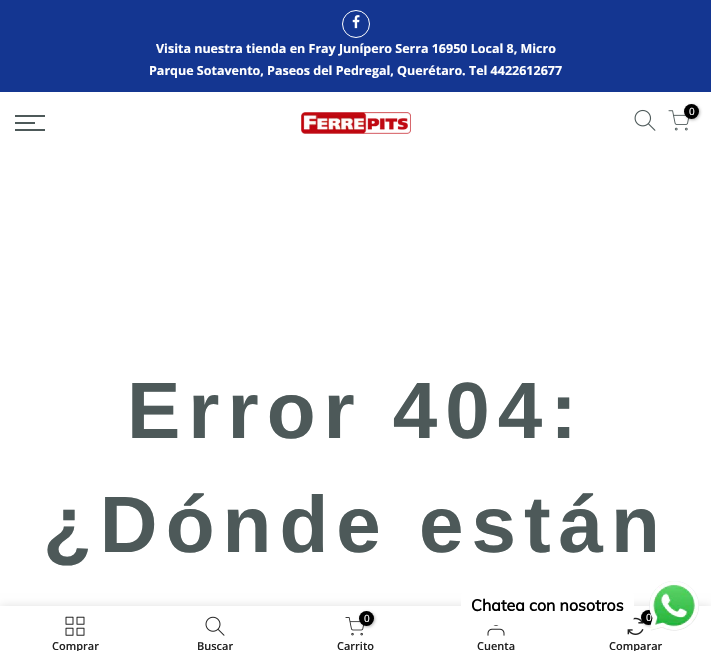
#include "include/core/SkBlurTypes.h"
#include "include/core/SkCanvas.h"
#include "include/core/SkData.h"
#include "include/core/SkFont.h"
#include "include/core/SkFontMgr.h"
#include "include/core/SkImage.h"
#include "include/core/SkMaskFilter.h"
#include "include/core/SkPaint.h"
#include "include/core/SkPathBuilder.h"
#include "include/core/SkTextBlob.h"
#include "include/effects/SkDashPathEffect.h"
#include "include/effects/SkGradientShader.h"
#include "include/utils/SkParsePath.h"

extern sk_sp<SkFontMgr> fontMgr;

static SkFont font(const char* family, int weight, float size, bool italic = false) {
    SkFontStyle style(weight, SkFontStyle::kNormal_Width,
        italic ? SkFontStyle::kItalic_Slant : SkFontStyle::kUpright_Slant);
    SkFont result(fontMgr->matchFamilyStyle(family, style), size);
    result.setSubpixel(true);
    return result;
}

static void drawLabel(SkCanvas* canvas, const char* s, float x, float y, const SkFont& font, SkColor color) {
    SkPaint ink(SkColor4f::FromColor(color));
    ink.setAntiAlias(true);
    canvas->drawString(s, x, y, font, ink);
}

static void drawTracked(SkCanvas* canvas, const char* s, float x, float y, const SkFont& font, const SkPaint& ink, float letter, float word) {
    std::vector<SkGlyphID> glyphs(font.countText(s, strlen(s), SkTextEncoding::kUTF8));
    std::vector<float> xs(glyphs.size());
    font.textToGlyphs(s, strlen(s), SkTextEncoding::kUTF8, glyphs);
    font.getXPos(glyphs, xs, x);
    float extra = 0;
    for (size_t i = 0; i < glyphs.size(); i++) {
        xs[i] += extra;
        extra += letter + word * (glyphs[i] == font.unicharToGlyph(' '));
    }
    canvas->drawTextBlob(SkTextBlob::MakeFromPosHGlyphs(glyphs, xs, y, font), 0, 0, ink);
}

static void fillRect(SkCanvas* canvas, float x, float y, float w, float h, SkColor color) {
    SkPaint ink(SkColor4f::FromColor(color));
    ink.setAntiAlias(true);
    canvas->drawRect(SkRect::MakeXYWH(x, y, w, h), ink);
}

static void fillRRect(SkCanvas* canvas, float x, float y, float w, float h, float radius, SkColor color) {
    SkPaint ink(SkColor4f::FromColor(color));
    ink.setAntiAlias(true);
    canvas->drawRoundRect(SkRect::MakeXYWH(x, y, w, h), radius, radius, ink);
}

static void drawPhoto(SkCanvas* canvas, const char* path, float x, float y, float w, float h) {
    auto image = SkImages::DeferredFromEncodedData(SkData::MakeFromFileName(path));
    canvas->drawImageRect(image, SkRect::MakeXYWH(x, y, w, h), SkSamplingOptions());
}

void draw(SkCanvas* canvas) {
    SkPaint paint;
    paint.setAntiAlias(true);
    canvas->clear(0xFFFFFFFF);
    fillRect(canvas, 0, 0, 711, 92, 0xFF143691);
    paint.setStroke(true);
    paint.setStrokeWidth(1);
    paint.setColor(0xFFFFFFFF);
    canvas->drawCircle(356, 24, 13.5f, paint);
    drawPhoto(canvas, "assets/img1.png", 352, 15, 8, 14);
    SkFont font1 = font("Open Sans", 700, 12.5f);
    drawLabel(canvas, "Visita nuestra tienda en Fray Junípero Serra 16950 Local 8, Micro", 156, 53, font1, 0xFFFFFFFF);
    drawLabel(canvas, "Parque Sotavento, Paseos del Pedregal, Querétaro. Tel 4422612677", 149, 75, font1, 0xFFFFFFFF);
    fillRect(canvas, 15, 115, 30, 2, 0xFF4D5959);
    fillRect(canvas, 15, 122, 20, 2, 0xFF4D5959);
    fillRect(canvas, 15, 129, 30, 2, 0xFF4D5959);
    drawPhoto(canvas, "assets/img2.png", 301, 112, 110, 22);
    drawPhoto(canvas, "assets/img3.png", 634, 109, 22, 22);
    drawPhoto(canvas, "assets/img4.png", 668, 110, 21, 21);
    paint.setStroke(false);
    paint.setColor(0x4D000000);
    paint.setMaskFilter(SkMaskFilter::MakeBlur(kNormal_SkBlurStyle, 1.5f));
    canvas->drawRoundRect(SkRect::MakeXYWH(685, 105, 15, 15), 7.5f, 7.5f, paint);
    paint.setMaskFilter(nullptr);
    paint.setColor(0xFF000000);
    canvas->drawCircle(691.5f, 111.5f, 7.5f, paint);
    SkFont font2 = font("Open Sans", 400, 10);
    drawLabel(canvas, "0", 689, 115, font2, 0xFFFFFFFF);
    SkFont font3 = font("Liberation Sans", 700, 80);
    paint.setColor(0xFF4D5959);
    drawTracked(canvas, "Error 404:", 127, 438, font3, paint, 8, 0);
    drawTracked(canvas, "¿Dónde están", 43, 552, font3, paint, 8, 0);
    paint.setColor(0x1F000000);
    paint.setMaskFilter(SkMaskFilter::MakeBlur(kNormal_SkBlurStyle, 4.5f));
    canvas->drawRect(SkRect::MakeXYWH(0, 606, 711, 55), paint);
    paint.setMaskFilter(nullptr);
    fillRect(canvas, 0, 606, 711, 55, 0xFFFFFFFF);
    drawPhoto(canvas, "assets/img10.png", 627, 617, 17, 18);
    paint.setColor(0x4D000000);
    paint.setMaskFilter(SkMaskFilter::MakeBlur(kNormal_SkBlurStyle, 1.5f));
    canvas->drawRoundRect(SkRect::MakeXYWH(642, 611, 15, 15), 7.5f, 7.5f, paint);
    paint.setMaskFilter(nullptr);
    paint.setColor(0xFF000000);
    canvas->drawCircle(648.5f, 617.5f, 7.5f, paint);
    drawLabel(canvas, "0", 646, 621, font2, 0xFFFFFFFF);
    drawPhoto(canvas, "assets/img5.png", 649, 581, 50, 50);
    fillRRect(canvas, 461, 586, 173, 39, 8, 0xFFFFFFFF);
    SkFont font4 = font("Muli", 700, 16);
    drawLabel(canvas, "Chatea con nosotros", 471, 611, font4, 0xFF000000);
    drawPhoto(canvas, "assets/img6.png", 65, 616, 20, 20);
    canvas->save();
    canvas->clipRect(SkRect::MakeXYWH(15, 640, 120, 11));
    SkFont font5 = font("Open Sans", 600, 11);
    drawLabel(canvas, "Comprar", 52, 650, font5, 0xFF222222);
    canvas->restore();
    drawPhoto(canvas, "assets/img7.png", 205, 616, 20, 20);
    drawLabel(canvas, "Buscar", 197, 650, font5, 0xFF222222);
    drawPhoto(canvas, "assets/img8.png", 345, 617, 19, 19);
    paint.setColor(0x4D000000);
    paint.setMaskFilter(SkMaskFilter::MakeBlur(kNormal_SkBlurStyle, 1.5f));
    canvas->drawRoundRect(SkRect::MakeXYWH(360, 612, 15, 15), 7.5f, 7.5f, paint);
    paint.setMaskFilter(nullptr);
    paint.setColor(0xFF000000);
    canvas->drawCircle(366.5f, 618.5f, 7.5f, paint);
    drawLabel(canvas, "0", 364, 622, font2, 0xFFFFFFFF);
    drawLabel(canvas, "Carrito", 337, 650, font5, 0xFF222222);
    drawPhoto(canvas, "assets/img9.png", 487, 625, 18, 11);
    drawLabel(canvas, "Cuenta", 477, 650, font5, 0xFF222222);
    canvas->save();
    canvas->clipRect(SkRect::MakeXYWH(576, 640, 120, 11));
    drawLabel(canvas, "Comparar", 609, 650, font5, 0xFF222222);
    canvas->restore();
}
